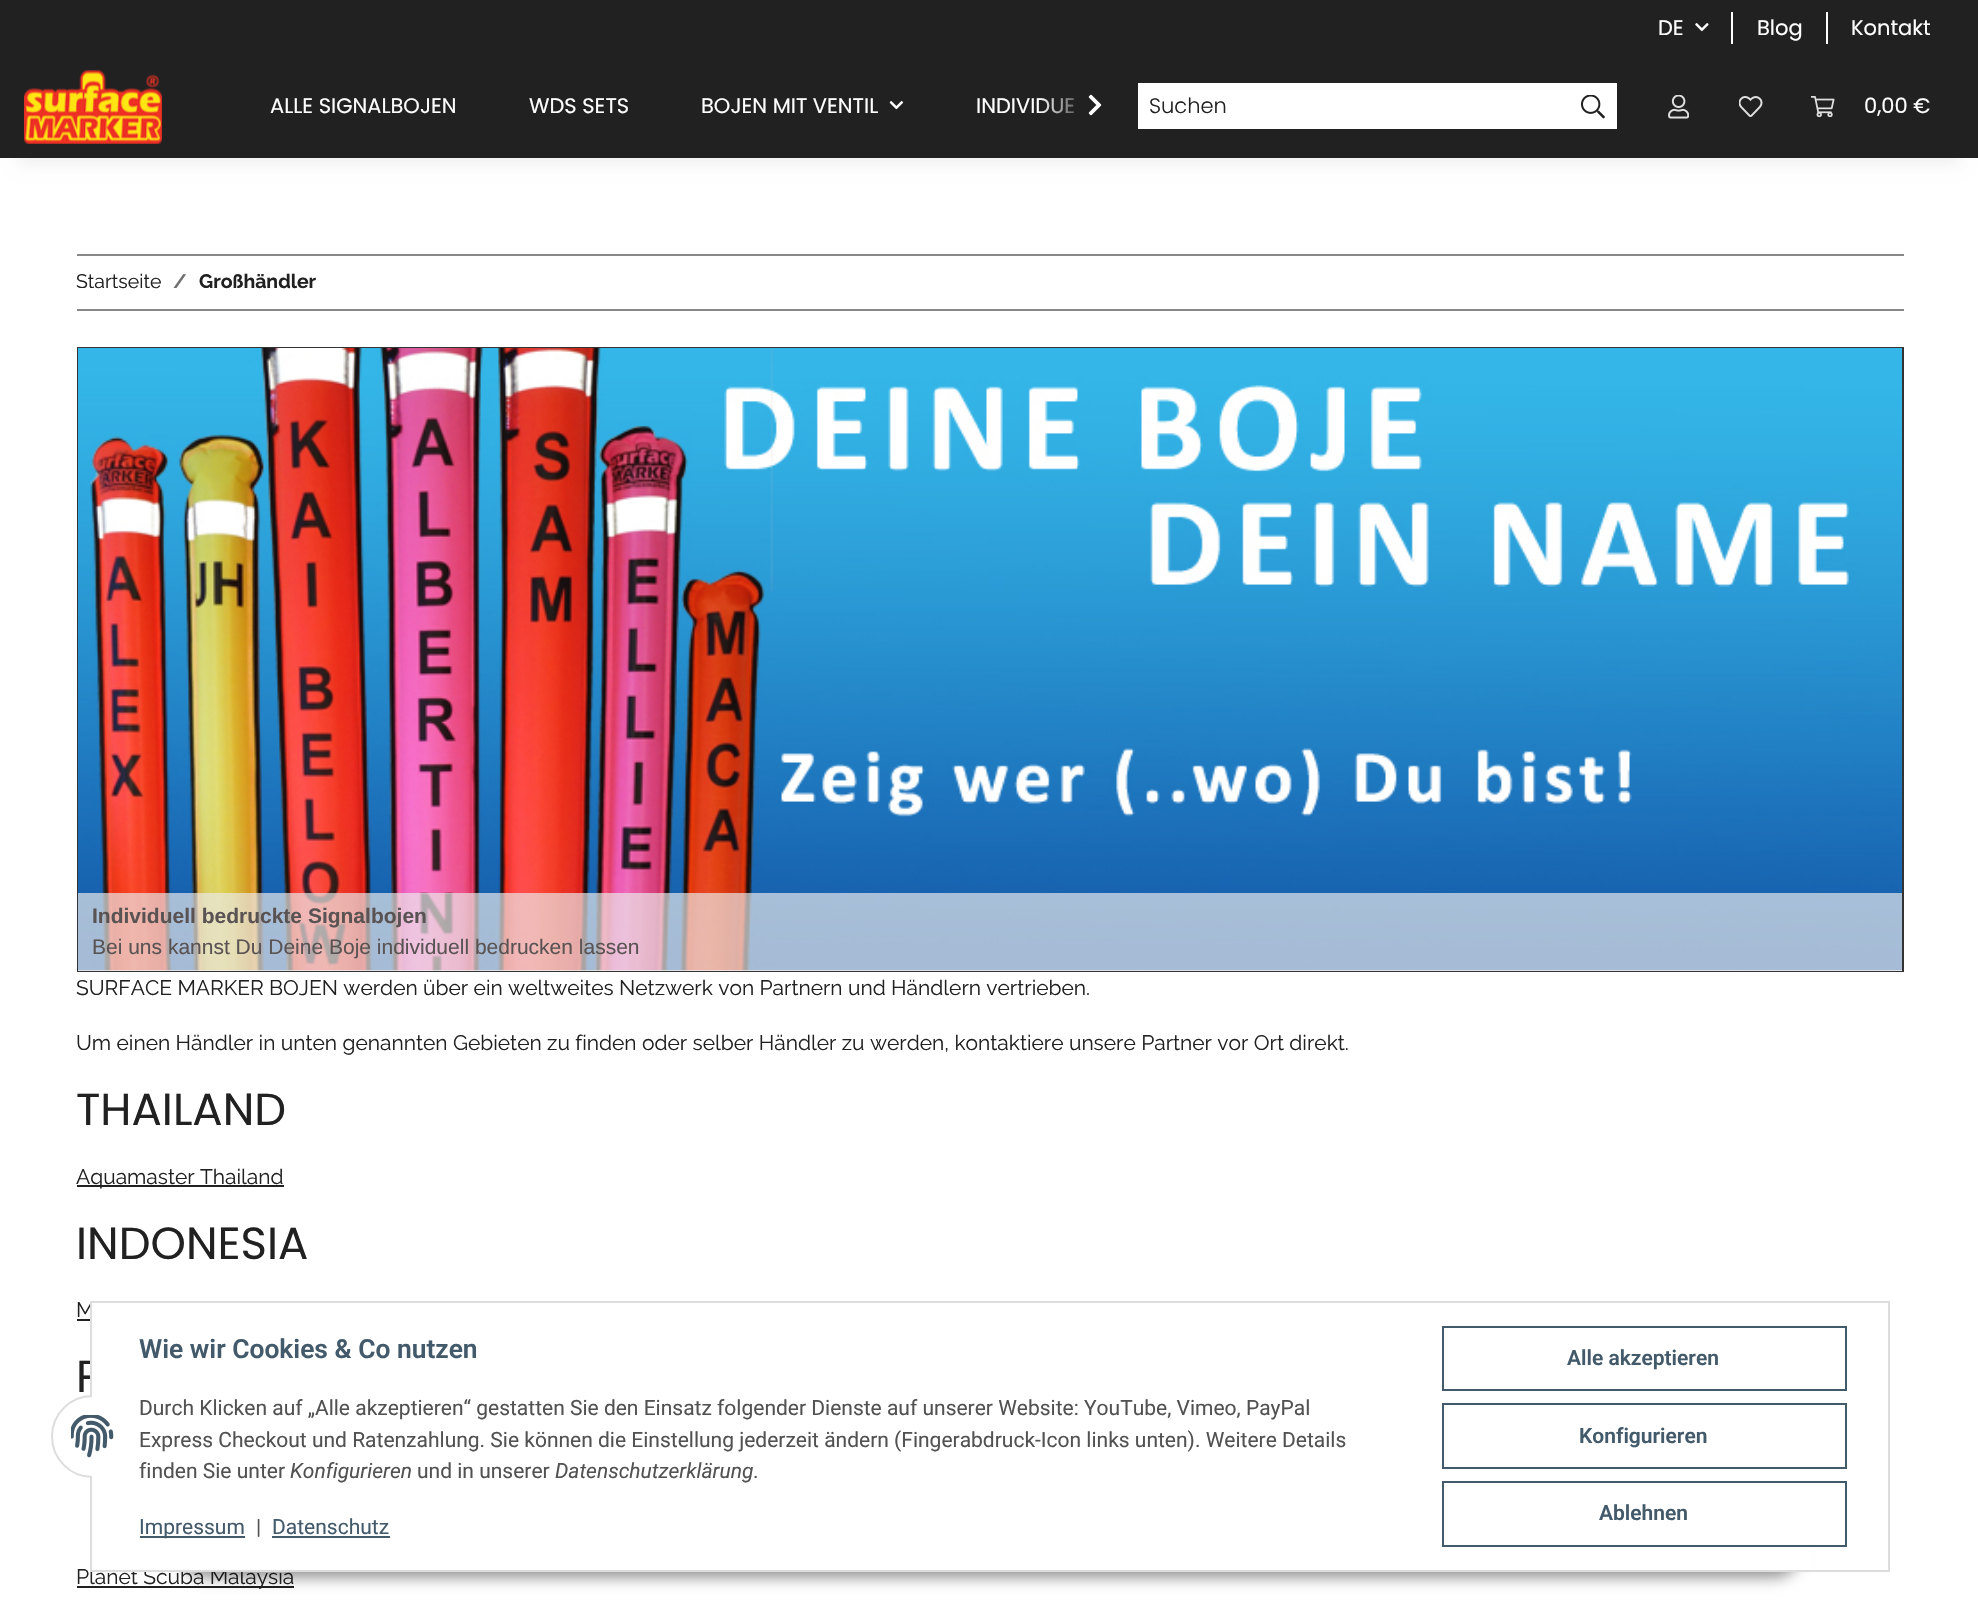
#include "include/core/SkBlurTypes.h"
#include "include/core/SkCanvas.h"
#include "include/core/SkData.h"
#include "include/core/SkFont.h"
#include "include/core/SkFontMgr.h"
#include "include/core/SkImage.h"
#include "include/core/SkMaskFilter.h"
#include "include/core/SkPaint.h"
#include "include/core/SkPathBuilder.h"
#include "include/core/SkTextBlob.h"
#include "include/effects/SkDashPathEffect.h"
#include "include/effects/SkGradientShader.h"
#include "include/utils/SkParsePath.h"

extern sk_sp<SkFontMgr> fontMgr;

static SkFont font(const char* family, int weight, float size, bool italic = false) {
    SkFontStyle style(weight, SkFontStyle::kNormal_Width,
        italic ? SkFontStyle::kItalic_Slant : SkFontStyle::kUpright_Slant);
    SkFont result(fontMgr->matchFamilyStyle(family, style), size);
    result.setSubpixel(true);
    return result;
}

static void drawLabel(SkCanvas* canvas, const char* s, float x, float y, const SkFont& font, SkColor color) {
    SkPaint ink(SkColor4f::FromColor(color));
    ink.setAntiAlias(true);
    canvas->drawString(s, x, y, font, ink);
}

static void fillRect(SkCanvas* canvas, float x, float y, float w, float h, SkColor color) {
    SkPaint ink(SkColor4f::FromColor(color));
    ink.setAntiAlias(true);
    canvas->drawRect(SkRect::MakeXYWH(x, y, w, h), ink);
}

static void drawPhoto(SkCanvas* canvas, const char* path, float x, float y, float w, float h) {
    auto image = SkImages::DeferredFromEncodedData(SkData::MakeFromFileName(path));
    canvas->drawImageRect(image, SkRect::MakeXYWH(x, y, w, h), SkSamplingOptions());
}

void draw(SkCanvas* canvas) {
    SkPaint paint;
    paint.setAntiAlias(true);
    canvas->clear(0xFFFFFFFF);
    paint.setColor(0x0F000000);
    paint.setMaskFilter(SkMaskFilter::MakeBlur(kNormal_SkBlurStyle, 7));
    canvas->drawRect(SkRect::MakeXYWH(18, 98, 1943, 66), paint);
    paint.setMaskFilter(nullptr);
    fillRect(canvas, 0, 0, 1978, 158, 0xFF212121);
    SkFont font1 = font("Poppins", 400, 21);
    drawLabel(canvas, "DE", 1658, 35, font1, 0xFFFFFFFF);
    drawPhoto(canvas, "assets/img1.png", 1695, 23, 14, 9);
    fillRect(canvas, 1731, 12, 2, 32, 0xFFFFFFFF);
    drawLabel(canvas, "Blog", 1757, 35, font1, 0xFFFFFFFF);
    fillRect(canvas, 1826, 12, 2, 32, 0xFFFFFFFF);
    drawLabel(canvas, "Kontakt", 1851, 35, font1, 0xFFFFFFFF);
    drawPhoto(canvas, "assets/img2.png", 24, 70, 138, 74);
    drawLabel(canvas, "INDIVIDUE", 976, 113, font1, 0xFFFFFFFF);
    {
        const SkColor colors[] = {0x03212121, 0xFF212121};
        const float stops[] = {0, 0.7f};
        const SkPoint ends[] = {{1040, 107}, {1112, 107}};
        paint.setShader(SkGradientShader::MakeLinear(ends, colors, stops, 2, SkTileMode::kClamp));
        paint.setAlpha(255);
    }
    canvas->drawRect(SkRect::MakeXYWH(1041, 98, 33, 16), paint);
    drawPhoto(canvas, "assets/img3.png", 1088, 94, 14, 22);
    drawLabel(canvas, "ALLE SIGNALBOJEN", 270, 113, font1, 0xFFFFFFFF);
    drawLabel(canvas, "WDS SETS", 529, 113, font1, 0xFFFFFFFF);
    drawLabel(canvas, "BOJEN MIT VENTIL", 701, 113, font1, 0xFFFFFFFF);
    drawPhoto(canvas, "assets/img4.png", 889, 101, 15, 9);
    fillRect(canvas, 1138, 83, 479, 46, 0xFFFFFFFF);
    SkFont font2 = font("Poppins", 300, 21);
    drawLabel(canvas, "Suchen", 1149, 113, font2, 0xFF212121);
    drawPhoto(canvas, "assets/img5.png", 1581, 95, 24, 24);
    drawPhoto(canvas, "assets/img6.png", 1668, 95, 21, 24);
    drawPhoto(canvas, "assets/img7.png", 1739, 96, 24, 21);
    drawPhoto(canvas, "assets/img8.png", 1811, 96, 24, 21);
    drawLabel(canvas, "0,00 €", 1864, 113, font1, 0xFFFFFFFF);
    fillRect(canvas, 77, 254, 1827, 2, 0xFF888888);
    fillRect(canvas, 77, 309, 1827, 2, 0xFF888888);
    SkFont font3 = font("Raleway", 400, 19.5f);
    drawLabel(canvas, "Startseite", 76, 288, font3, 0xFF212121);
    SkFont font4 = font("Raleway", 700, 19.5f);
    drawLabel(canvas, "/", 173, 288, font4, 0xFF707070);
    drawLabel(canvas, "Großhändler", 199, 288, font4, 0xFF212121);
    paint.setStroke(true);
    paint.setStrokeWidth(2);
    paint.setShader(nullptr);
    paint.setColor(0xFF333333);
    canvas->drawRect(SkRect::MakeXYWH(78, 348, 1825, 623), paint);
    fillRect(canvas, 78, 970, 1824, 1, 0xFFFFFFFF);
    drawPhoto(canvas, "assets/img9.png", 78, 348, 1824, 623);
    fillRect(canvas, 78, 893, 1824, 78, 0xADEBEBEB);
    SkFont font5 = font("Liberation Sans", 700, 21);
    drawLabel(canvas, "Individuell bedruckte Signalbojen", 92, 923, font5, 0xFF5A5353);
    SkFont font6 = font("Liberation Sans", 400, 21);
    drawLabel(canvas, "Bei uns kannst Du Deine Boje individuell bedrucken lassen", 92, 954, font6, 0xFF5A5353);
    SkFont font7 = font("Raleway", 400, 21);
    drawLabel(canvas, "SURFACE MARKER BOJEN werden über ein weltweites Netzwerk von Partnern und Händlern vertrieben.", 76, 995, font7, 0xFF212121);
    drawLabel(canvas, "Um einen Händler in unten genannten Gebieten zu finden oder selber Händler zu werden, kontaktiere unsere Partner vor Ort direkt.", 76, 1050, font7, 0xFF212121);
    SkFont font8 = font("Poppins", 400, 45);
    drawLabel(canvas, "THAILAND", 76, 1125, font8, 0xFF212121);
    fillRect(canvas, 77, 1185, 207, 2, 0xFF212121);
    drawLabel(canvas, "Aquamaster Thailand", 76, 1184, font7, 0xFF212121);
    drawLabel(canvas, "INDONESIA", 76, 1259, font8, 0xFF212121);
    drawLabel(canvas, "M", 76, 1317, font7, 0xFF212121);
    fillRect(canvas, 77, 1319, 13, 2, 0xFF212121);
    drawLabel(canvas, "P", 76, 1392, font8, 0xFF212121);
    fillRect(canvas, 77, 1586, 217, 2, 0xFF212121);
    drawLabel(canvas, "Planet Scuba Malaysia", 76, 1584, font7, 0xFF212121);
    paint.setStroke(false);
    paint.setColor(0x73000000);
    paint.setMaskFilter(SkMaskFilter::MakeBlur(kNormal_SkBlurStyle, 7.5f));
    canvas->drawRoundRect(SkRect::MakeXYWH(180, 1529, 1619, 48), 24, 24, paint);
    paint.setMaskFilter(nullptr);
    fillRect(canvas, 92, 1303, 1721, 267, 0xFFFFFFFF);
    paint.setStroke(true);
    paint.setColor(0xFFDDDDDD);
    canvas->drawRect(SkRect::MakeXYWH(91, 1302, 1798, 269), paint);
    paint.setStroke(false);
    paint.setColor(0xFFFFFFFF);
    canvas->drawCircle(92.5f, 1436.5f, 40.5f, paint);
    paint.setStroke(true);
    paint.setColor(0xFFDDDDDD);
    canvas->drawCircle(92.5f, 1436.5f, 40.5f, paint);
    fillRect(canvas, 92, 1395, 42, 83, 0xFFFFFFFF);
    drawPhoto(canvas, "assets/img10.png", 71, 1415, 43, 43);
    SkFont font9 = font("Roboto", 600, 26.4f);
    drawLabel(canvas, "Wie wir Cookies & Co nutzen", 139, 1358, font9, 0xFF435A6B);
    SkFont font10 = font("Roboto", 400, 21);
    drawLabel(canvas, "Durch Klicken auf „Alle akzeptieren“ gestatten Sie den Einsatz folgender Dienste auf unserer Website: YouTube, Vimeo, PayPal", 139, 1415, font10, 0xFF525252);
    drawLabel(canvas, "Express Checkout und Ratenzahlung. Sie können die Einstellung jederzeit ändern (Fingerabdruck-Icon links unten). Weitere Details", 139, 1447, font10, 0xFF525252);
    drawLabel(canvas, "finden Sie unter", 139, 1478, font10, 0xFF525252);
    SkFont font11 = font("Roboto", 400, 21, true);
    drawLabel(canvas, "Konfigurieren", 290, 1478, font11, 0xFF525252);
    drawLabel(canvas, "und in unserer", 417, 1478, font10, 0xFF525252);
    drawLabel(canvas, "Datenschutzerklärung", 555, 1478, font11, 0xFF525252);
    drawLabel(canvas, ".", 753, 1478, font10, 0xFF525252);
    fillRect(canvas, 140, 1536, 105, 2, 0xFF435A6B);
    drawLabel(canvas, "Impressum", 139, 1534, font10, 0xFF435A6B);
    drawLabel(canvas, "|", 256, 1534, font10, 0xFF525252);
    drawLabel(canvas, "Datenschutz", 272, 1534, font10, 0xFF435A6B);
    fillRect(canvas, 272, 1536, 118, 2, 0xFF435A6B);
    paint.setColor(0xFF435A6B);
    canvas->drawRect(SkRect::MakeXYWH(1443, 1327, 403, 63), paint);
    SkFont font12 = font("Roboto", 600, 21);
    drawLabel(canvas, "Alle akzeptieren", 1567, 1365, font12, 0xFF435A6B);
    canvas->drawRect(SkRect::MakeXYWH(1443, 1404, 403, 64), paint);
    drawLabel(canvas, "Konfigurieren", 1579, 1443, font12, 0xFF435A6B);
    canvas->drawRect(SkRect::MakeXYWH(1443, 1482, 403, 64), paint);
    drawLabel(canvas, "Ablehnen", 1599, 1520, font12, 0xFF435A6B);
}
